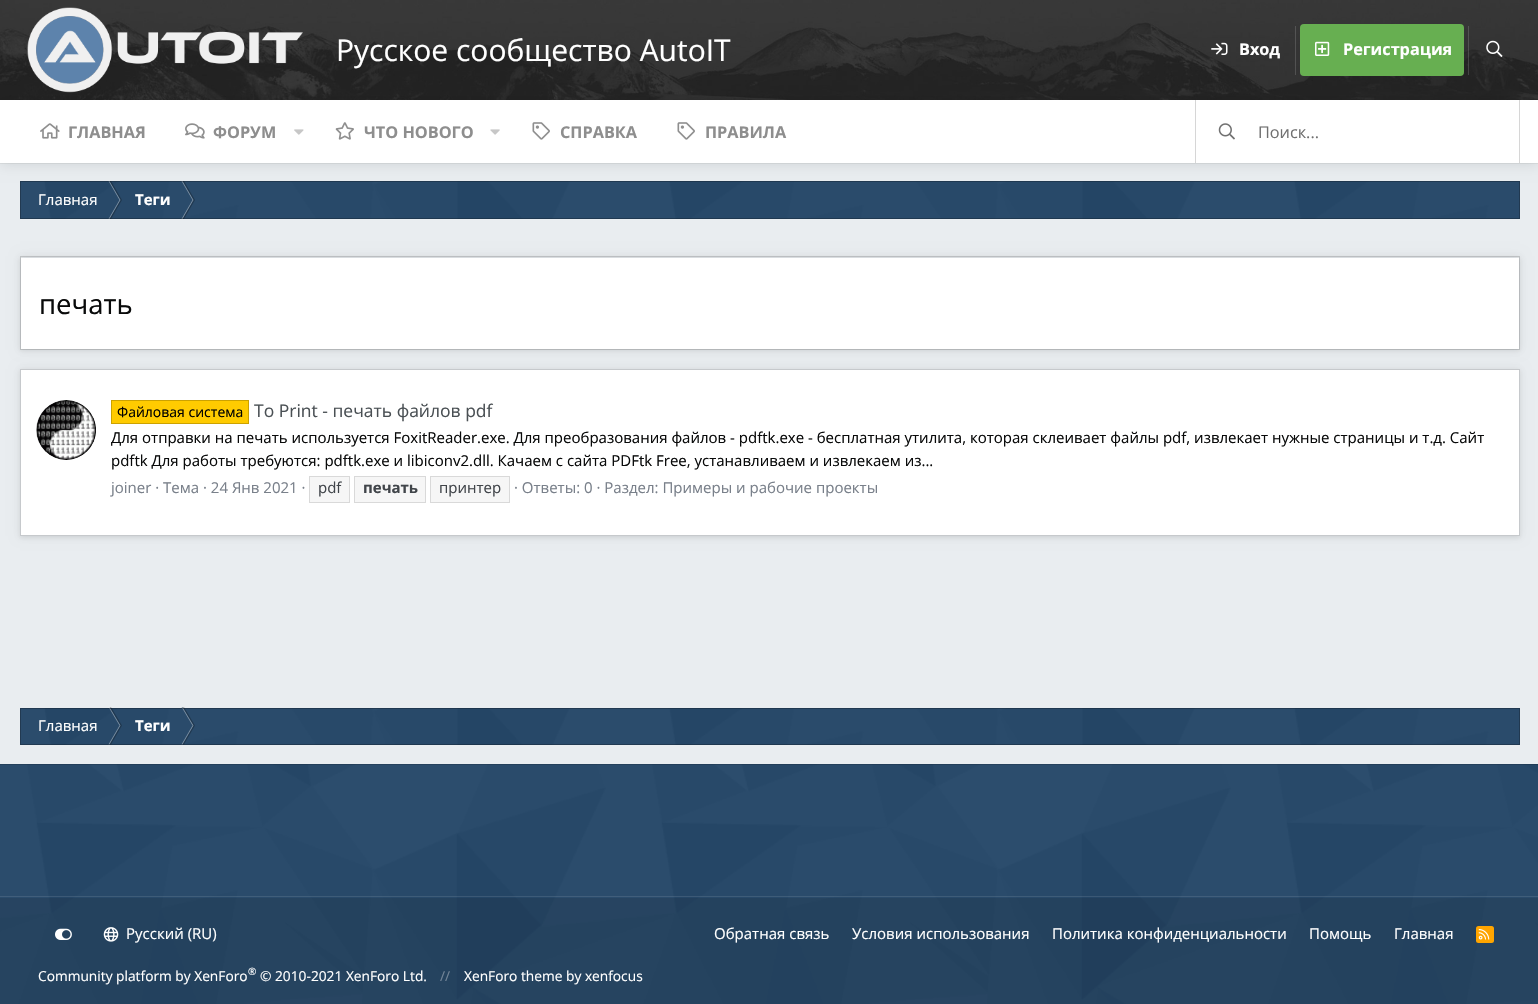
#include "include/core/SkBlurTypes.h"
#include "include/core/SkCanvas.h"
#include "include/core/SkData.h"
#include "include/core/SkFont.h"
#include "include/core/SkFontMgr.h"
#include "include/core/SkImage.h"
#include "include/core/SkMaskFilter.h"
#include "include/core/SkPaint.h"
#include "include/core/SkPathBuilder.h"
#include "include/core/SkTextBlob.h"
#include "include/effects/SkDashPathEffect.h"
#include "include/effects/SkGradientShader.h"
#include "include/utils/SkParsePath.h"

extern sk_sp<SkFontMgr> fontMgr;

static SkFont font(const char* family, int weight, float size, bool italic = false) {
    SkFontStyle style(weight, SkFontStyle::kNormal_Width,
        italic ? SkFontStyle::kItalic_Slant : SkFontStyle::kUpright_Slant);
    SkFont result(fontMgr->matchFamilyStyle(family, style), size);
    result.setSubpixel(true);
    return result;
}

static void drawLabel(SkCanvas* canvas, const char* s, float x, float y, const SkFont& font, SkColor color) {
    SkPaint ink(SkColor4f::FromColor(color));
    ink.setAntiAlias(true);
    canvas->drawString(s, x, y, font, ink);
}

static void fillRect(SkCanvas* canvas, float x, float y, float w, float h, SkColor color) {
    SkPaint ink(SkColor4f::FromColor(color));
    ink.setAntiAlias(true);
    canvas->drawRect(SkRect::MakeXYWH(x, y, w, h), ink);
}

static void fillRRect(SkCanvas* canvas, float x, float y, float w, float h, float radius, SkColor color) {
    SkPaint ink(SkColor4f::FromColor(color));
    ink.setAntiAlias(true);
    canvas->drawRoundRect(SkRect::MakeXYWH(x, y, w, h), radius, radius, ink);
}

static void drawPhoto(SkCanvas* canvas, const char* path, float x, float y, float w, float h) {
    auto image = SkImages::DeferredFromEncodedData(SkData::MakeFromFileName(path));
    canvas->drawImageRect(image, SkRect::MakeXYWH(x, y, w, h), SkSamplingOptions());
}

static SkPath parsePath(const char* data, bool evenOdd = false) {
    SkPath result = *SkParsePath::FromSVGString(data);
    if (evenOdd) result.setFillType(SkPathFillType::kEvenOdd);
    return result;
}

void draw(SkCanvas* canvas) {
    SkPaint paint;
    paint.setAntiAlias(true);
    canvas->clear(0xFFFFFFFF);
    drawPhoto(canvas, "assets/img1.png", 0, 0, 1538, 100);
    drawPhoto(canvas, "assets/img2.png", 27, 7, 276, 86);
    SkFont font1 = font("Open Sans", 400, 30);
    drawLabel(canvas, "Русское сообщество AutoIT", 336, 61, font1, 0xFFFFFFFF);
    drawPhoto(canvas, "assets/img3.png", 1211, 42, 17, 13);
    SkFont font2 = font("Open Sans", 700, 16.25f);
    drawLabel(canvas, "Вход", 1239, 55, font2, 0xFFFFFFFF);
    fillRect(canvas, 1295, 26, 1, 49, 0x26FFFFFF);
    fillRRect(canvas, 1300, 24, 164, 52, 4, 0xFF67AF51);
    drawPhoto(canvas, "assets/img4.png", 1315, 41, 15, 15);
    drawLabel(canvas, "Регистрация", 1343, 55, font2, 0xFFFFFFFF);
    fillRect(canvas, 1468, 26, 1, 49, 0x26FFFFFF);
    drawPhoto(canvas, "assets/img5.png", 1486, 40, 17, 17);
    fillRect(canvas, 0, 163, 1538, 601, 0xFFE9EDF0);
    paint.setColor(0x0D000000);
    canvas->drawPath(parsePath("M0 162V164H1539V101V162Z"), paint);
    fillRect(canvas, 20, 181, 1500, 38, 0xFF254768);
    drawPhoto(canvas, "assets/img13.png", 20, 181, 1500, 38);
    paint.setColor(0x66FFFFFF);
    canvas->drawPath(parsePath("M108.5 181H109.5L120.5 200H119.5Z"), paint);
    paint.setColor(0x40000000);
    canvas->drawPath(parsePath("M109.5 181H111L122 200H120.5Z"), paint);
    paint.setColor(0xFF7E92A5);
    canvas->drawPath(parsePath("M119.5 200H120.5L109.5 219H108.5Z"), paint);
    paint.setColor(0x40000000);
    canvas->drawPath(parsePath("M120.5 200H122L111 219H109.5Z"), paint);
    paint.setColor(0xFF7F93A6);
    canvas->drawPath(parsePath("M181.5 181H182.5L193.5 200H192.5Z"), paint);
    paint.setColor(0x40000000);
    canvas->drawPath(parsePath("M182.5 181H184L195 200H193.5Z"), paint);
    paint.setColor(0x66FFFFFF);
    canvas->drawPath(parsePath("M192.5 200H193.5L182.5 219H181.5Z"), paint);
    paint.setColor(0x40000000);
    canvas->drawPath(parsePath("M193.5 200H195L184 219H182.5Z"), paint);
    paint.setStroke(true);
    paint.setStrokeWidth(1);
    paint.setColor(0x40020303);
    canvas->drawRect(SkRect::MakeXYWH(20.5f, 181.5f, 1499, 37), paint);
    paint.setStroke(false);
    paint.setColor(0x1A000000);
    paint.setMaskFilter(SkMaskFilter::MakeBlur(kNormal_SkBlurStyle, 6));
    canvas->drawRect(SkRect::MakeXYWH(0, 103, 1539, 62), paint);
    paint.setMaskFilter(nullptr);
    fillRect(canvas, 0, 100, 1538, 63, 0xFFFFFFFF);
    drawPhoto(canvas, "assets/img6.png", 40, 123, 20, 16);
    drawLabel(canvas, "ГЛАВНАЯ", 68, 138, font2, 0xFF8E8E8E);
    drawPhoto(canvas, "assets/img7.png", 185, 123, 20, 16);
    drawLabel(canvas, "ФОРУМ", 213, 138, font2, 0xFF8E8E8E);
    drawPhoto(canvas, "assets/img8.png", 294, 129, 10, 6);
    drawPhoto(canvas, "assets/img9.png", 335, 122, 19, 18);
    drawLabel(canvas, "ЧТО НОВОГО", 364, 138, font2, 0xFF8E8E8E);
    drawPhoto(canvas, "assets/img10.png", 490, 129, 10, 6);
    drawPhoto(canvas, "assets/img11.png", 532, 122, 18, 18);
    drawLabel(canvas, "СПРАВКА", 560, 138, font2, 0xFF8E8E8E);
    drawPhoto(canvas, "assets/img11.png", 677, 122, 18, 18);
    drawLabel(canvas, "ПРАВИЛА", 705, 138, font2, 0xFF8E8E8E);
    fillRect(canvas, 1519, 100, 1, 63, 0xFFD6D6D6);
    fillRect(canvas, 1195, 100, 1, 63, 0xFFD6D6D6);
    drawPhoto(canvas, "assets/img12.png", 1218, 123, 17, 17);
    SkFont font3 = font("Open Sans", 400, 16.25f);
    drawLabel(canvas, "Поиск...", 1258, 138, font3, 0xFF707070);
    SkFont font4 = font("Open Sans", 400, 15);
    drawLabel(canvas, "Главная", 38, 205, font4, 0xFFFFFFFF);
    SkFont font5 = font("Open Sans", 700, 15);
    drawLabel(canvas, "Теги", 135, 205, font5, 0xFFFFFFFF);
    paint.setColor(0x14000000);
    paint.setMaskFilter(SkMaskFilter::MakeBlur(kNormal_SkBlurStyle, 2));
    canvas->drawRect(SkRect::MakeXYWH(20, 258, 1500, 93), paint);
    paint.setMaskFilter(nullptr);
    paint.setColor(0x0F000000);
    paint.setMaskFilter(SkMaskFilter::MakeBlur(kNormal_SkBlurStyle, 5));
    canvas->drawRect(SkRect::MakeXYWH(20, 256, 1500, 94), paint);
    paint.setMaskFilter(nullptr);
    fillRect(canvas, 21, 258, 1498, 91, 0xFFFFFFFF);
    paint.setStroke(true);
    paint.setColor(0x26000000);
    canvas->drawRect(SkRect::MakeXYWH(20.5f, 256.5f, 1499, 93), paint);
    SkFont font6 = font("Open Sans", 400, 27.5f);
    drawLabel(canvas, "печать", 39, 314, font6, 0xFF090A0A);
    paint.setStroke(false);
    paint.setColor(0x14000000);
    paint.setMaskFilter(SkMaskFilter::MakeBlur(kNormal_SkBlurStyle, 2));
    canvas->drawRect(SkRect::MakeXYWH(20, 370, 1500, 168), paint);
    paint.setMaskFilter(nullptr);
    paint.setColor(0x0F000000);
    paint.setMaskFilter(SkMaskFilter::MakeBlur(kNormal_SkBlurStyle, 5));
    canvas->drawRect(SkRect::MakeXYWH(20, 369, 1500, 167), paint);
    paint.setMaskFilter(nullptr);
    paint.setColor(0xFFFFFFFF);
    canvas->drawRect(SkRect::MakeXYWH(20.5f, 369.5f, 1499, 166), paint);
    paint.setStroke(true);
    paint.setColor(0xFFC6C9CC);
    canvas->drawRect(SkRect::MakeXYWH(20.5f, 369.5f, 1499, 166), paint);
    drawPhoto(canvas, "assets/img14.png", 36, 400, 60, 60);
    paint.setColor(0x26090A0A);
    canvas->drawCircle(66, 430, 29.5f, paint);
    paint.setStroke(false);
    paint.setColor(0xFFFFCB00);
    canvas->drawRect(SkRect::MakeXYWH(111.5f, 400.5f, 137, 23), paint);
    paint.setStroke(true);
    paint.setColor(0xFFCCA200);
    canvas->drawRect(SkRect::MakeXYWH(111.5f, 400.5f, 137, 23), paint);
    SkFont font7 = font("Open Sans", 400, 14);
    drawLabel(canvas, "Файловая система", 117, 417, font7, 0xFF000000);
    SkFont font8 = font("Open Sans", 400, 17.5f);
    drawLabel(canvas, "To Print - печать файлов pdf", 254, 417, font8, 0xFF4A5054);
    drawLabel(canvas, "Для отправки на печать используется FoxitReader.exe. Для преобразования файлов - pdftk.exe - бесплатная утилита, которая склеивает файлы pdf, извлекает нужные страницы и т.д. Сайт", 111, 443, font4, 0xFF090A0A);
    drawLabel(canvas, "pdftk Для работы требуются: pdftk.exe и libiconv2.dll. Качаем с сайта PDFtk Free, устанавливаем и извлекаем из...", 111, 466, font4, 0xFF090A0A);
    drawLabel(canvas, "joiner · Тема · 24 Янв 2021 ·", 111, 493, font4, 0xFF79808A);
    paint.setStroke(false);
    paint.setColor(0xFFF6F6F6);
    canvas->drawRect(SkRect::MakeXYWH(309.5f, 476.5f, 40, 26), paint);
    paint.setStroke(true);
    paint.setColor(0xFFD9D9D9);
    canvas->drawRect(SkRect::MakeXYWH(309.5f, 476.5f, 40, 26), paint);
    drawLabel(canvas, "pdf", 318, 493, font4, 0xFF41454A);
    paint.setStroke(false);
    paint.setColor(0xFFF6F6F6);
    canvas->drawRect(SkRect::MakeXYWH(354.5f, 476.5f, 71, 26), paint);
    paint.setStroke(true);
    paint.setColor(0xFFD9D9D9);
    canvas->drawRect(SkRect::MakeXYWH(354.5f, 476.5f, 71, 26), paint);
    drawLabel(canvas, "печать", 363, 493, font5, 0xFF41454A);
    paint.setStroke(false);
    paint.setColor(0xFFF6F6F6);
    canvas->drawRect(SkRect::MakeXYWH(430.5f, 476.5f, 79, 26), paint);
    paint.setStroke(true);
    paint.setColor(0xFFD9D9D9);
    canvas->drawRect(SkRect::MakeXYWH(430.5f, 476.5f, 79, 26), paint);
    drawLabel(canvas, "принтер", 439, 493, font4, 0xFF41454A);
    drawLabel(canvas, "· Ответы: 0 · Раздел: Примеры и рабочие проекты", 514, 493, font4, 0xFF79808A);
    fillRect(canvas, 20, 708, 1500, 37, 0xFF254768);
    drawPhoto(canvas, "assets/img15.png", 20, 708, 1500, 37);
    paint.setStroke(false);
    paint.setColor(0x66FFFFFF);
    canvas->drawPath(parsePath("M108.5 707H109.5L120.5 725.5H119.5Z"), paint);
    paint.setColor(0x40000000);
    canvas->drawPath(parsePath("M109.5 707H111L122 725.5H120.5Z"), paint);
    paint.setColor(0xFF7E92A5);
    canvas->drawPath(parsePath("M119.5 725.5H120.5L109.5 744.5H108.5Z"), paint);
    paint.setColor(0x40000000);
    canvas->drawPath(parsePath("M120.5 725.5H122L111 744.5H109.5Z"), paint);
    paint.setColor(0xFF7F93A6);
    canvas->drawPath(parsePath("M181.5 707H182.5L193.5 725.5H192.5Z"), paint);
    paint.setColor(0x40000000);
    canvas->drawPath(parsePath("M182.5 707H184L195 725.5H193.5Z"), paint);
    paint.setColor(0xFF7F93A6);
    canvas->drawPath(parsePath("M192.5 725.5H193.5L182.5 744.5H181.5Z"), paint);
    paint.setColor(0x40000000);
    canvas->drawPath(parsePath("M193.5 725.5H195L184 744.5H182.5Z"), paint);
    paint.setStroke(true);
    paint.setColor(0x40020303);
    canvas->drawRect(SkRect::MakeXYWH(20.5f, 708.5f, 1499, 36), paint);
    drawLabel(canvas, "Главная", 38, 731, font4, 0xFFFFFFFF);
    drawLabel(canvas, "Теги", 135, 731, font5, 0xFFFFFFFF);
    fillRect(canvas, 0, 764, 1538, 240, 0xFF254768);
    drawPhoto(canvas, "assets/img16.png", 0, 764, 1538, 240);
    fillRect(canvas, 0, 764, 1538, 1, 0x26000000);
    fillRect(canvas, 0, 896, 1538, 1, 0x1AFFFFFF);
    fillRect(canvas, 0, 898, 1538, 106, 0x1A000000);
    drawPhoto(canvas, "assets/img17.png", 55, 928, 17, 12);
    drawPhoto(canvas, "assets/img18.png", 103, 927, 16, 15);
    drawLabel(canvas, "Русский (RU)", 126, 939, font4, 0xFFFFFFFF);
    drawLabel(canvas, "Обратная связь", 714, 939, font4, 0xFFFFFFFF);
    drawLabel(canvas, "Условия использования", 852, 939, font4, 0xFFFFFFFF);
    drawLabel(canvas, "Политика конфиденциальности", 1052, 939, font4, 0xFFFFFFFF);
    drawLabel(canvas, "Помощь", 1309, 939, font4, 0xFFFFFFFF);
    drawLabel(canvas, "Главная", 1394, 939, font4, 0xFFFFFFFF);
    fillRRect(canvas, 1476, 926, 18, 17, 2.5f, 0xFFFFA500);
    drawPhoto(canvas, "assets/img19.png", 1478, 929, 12, 11);
    SkFont font9 = font("Open Sans", 400, 13.75f);
    drawLabel(canvas, "Community platform by XenForo", 38, 981, font9, 0xFFFFFFFF);
    SkFont font10 = font("Open Sans", 400, 10);
    drawLabel(canvas, "®", 248, 975, font10, 0xFFFFFFFF);
    drawLabel(canvas, "© 2010-2021 XenForo Ltd.", 260, 981, font9, 0xFFFFFFFF);
    drawLabel(canvas, "//", 440, 981, font9, 0xFF718497);
    drawLabel(canvas, "XenForo theme by xenfocus", 464, 981, font9, 0xFFFFFFFF);
}
